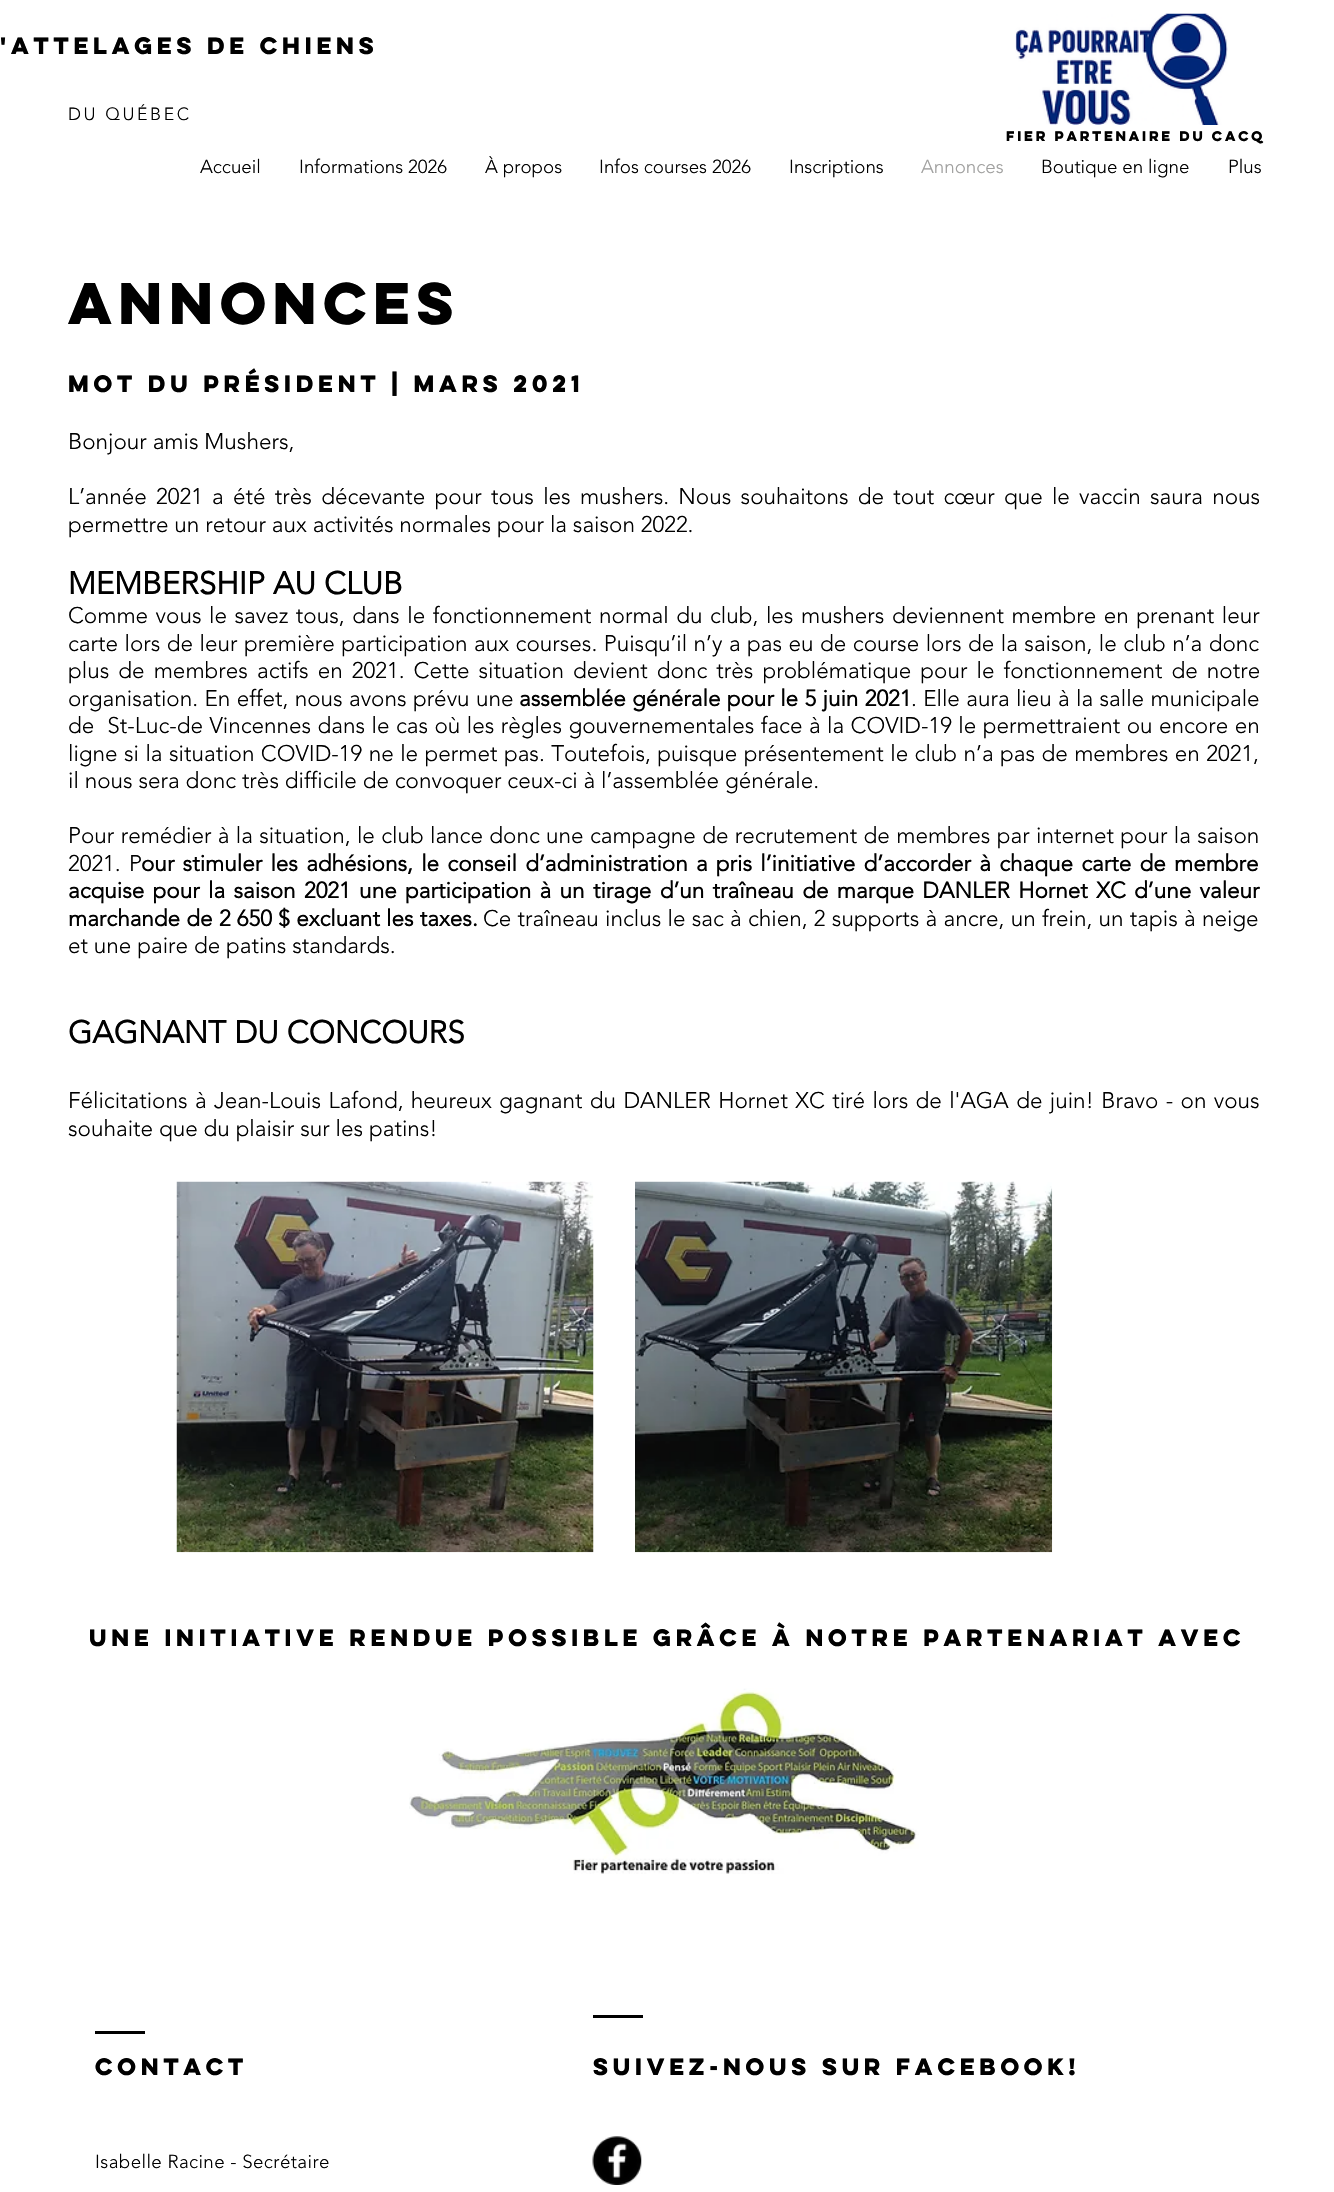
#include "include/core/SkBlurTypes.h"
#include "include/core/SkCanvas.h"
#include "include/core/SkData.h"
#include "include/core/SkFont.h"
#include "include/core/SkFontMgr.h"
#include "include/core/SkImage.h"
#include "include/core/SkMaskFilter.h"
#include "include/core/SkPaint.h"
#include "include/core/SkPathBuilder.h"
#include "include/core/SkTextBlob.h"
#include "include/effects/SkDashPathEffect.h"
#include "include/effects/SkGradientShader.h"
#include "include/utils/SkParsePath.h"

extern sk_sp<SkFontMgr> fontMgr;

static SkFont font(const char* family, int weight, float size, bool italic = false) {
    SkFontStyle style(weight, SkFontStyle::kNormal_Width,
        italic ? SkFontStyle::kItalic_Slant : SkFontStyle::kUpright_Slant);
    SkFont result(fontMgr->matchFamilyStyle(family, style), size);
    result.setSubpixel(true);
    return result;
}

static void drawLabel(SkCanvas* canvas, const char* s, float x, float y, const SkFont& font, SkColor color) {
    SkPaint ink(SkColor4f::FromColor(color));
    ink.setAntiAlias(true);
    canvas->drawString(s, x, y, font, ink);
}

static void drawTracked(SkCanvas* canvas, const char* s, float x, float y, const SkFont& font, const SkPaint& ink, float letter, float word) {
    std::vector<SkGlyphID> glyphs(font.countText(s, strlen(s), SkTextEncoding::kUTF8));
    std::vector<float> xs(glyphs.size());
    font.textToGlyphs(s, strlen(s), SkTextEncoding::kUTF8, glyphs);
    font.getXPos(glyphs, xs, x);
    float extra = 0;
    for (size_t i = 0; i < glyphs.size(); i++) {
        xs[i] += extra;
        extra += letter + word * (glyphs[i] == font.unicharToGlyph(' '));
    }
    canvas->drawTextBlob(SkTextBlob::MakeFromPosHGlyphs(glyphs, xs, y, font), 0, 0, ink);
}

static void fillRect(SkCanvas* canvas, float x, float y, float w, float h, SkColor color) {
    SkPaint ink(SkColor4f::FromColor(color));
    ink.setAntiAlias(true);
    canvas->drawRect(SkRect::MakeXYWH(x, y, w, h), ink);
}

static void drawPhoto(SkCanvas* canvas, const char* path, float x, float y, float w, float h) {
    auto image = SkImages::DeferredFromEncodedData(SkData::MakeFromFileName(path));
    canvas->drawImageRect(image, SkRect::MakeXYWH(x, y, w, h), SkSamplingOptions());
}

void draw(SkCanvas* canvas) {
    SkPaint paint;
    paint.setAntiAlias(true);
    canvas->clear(0xFFFFFFFF);
    SkFont font1 = font("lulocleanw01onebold", 700, 21.25f);
    drawLabel(canvas, "'attelages de chiens", 0, 54, font1, 0xFF000000);
    drawPhoto(canvas, "assets/img1.png", 1015, 13, 213, 112);
    SkFont font2 = font("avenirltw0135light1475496", 300, 17.5f);
    paint.setColor(0xFF000000);
    drawTracked(canvas, "DU QUÉBEC", 68, 120, font2, paint, 2.6f, 0);
    SkFont font3 = font("lulocleanw01onebold", 700, 12.5f);
    drawLabel(canvas, "FIER PARTENAIRE DU CACQ", 1006, 141, font3, 0xFF000000);
    SkFont font4 = font("avenirltw0135light1475496", 300, 18.75f);
    drawLabel(canvas, "Accueil", 200, 173, font4, 0xFF000000);
    drawLabel(canvas, "Informations 2026", 299, 173, font4, 0xFF000000);
    drawLabel(canvas, "À propos", 485, 173, font4, 0xFF000000);
    drawLabel(canvas, "Infos courses 2026", 599, 173, font4, 0xFF000000);
    drawLabel(canvas, "Inscriptions", 789, 173, font4, 0xFF000000);
    drawLabel(canvas, "Annonces", 921, 173, font4, 0xFFA0A09F);
    drawLabel(canvas, "Boutique en ligne", 1041, 173, font4, 0xFF000000);
    drawLabel(canvas, "Plus", 1228, 173, font4, 0xFF000000);
    SkFont font5 = font("lulocleanw01onebold", 700, 52.5f);
    drawTracked(canvas, "ANNONCES", 68, 324, font5, paint, -5.25f, 0);
    drawLabel(canvas, "mot du président | mars 2021", 68, 392, font1, 0xFF000000);
    SkFont font6 = font("avenirltw0135light1475496", 300, 22.5f);
    drawLabel(canvas, "Bonjour amis Mushers,", 68, 449, font6, 0xFF000000);
    drawTracked(canvas, "L’année 2021 a été très décevante pour tous les mushers. Nous souhaitons de tout cœur que le vaccin saura nous", 68, 504, font6, paint, 0, 3.4f);
    drawLabel(canvas, "permettre un retour aux activités normales pour la saison 2022.", 68, 532, font6, 0xFF000000);
    SkFont font7 = font("avenirltw0135light1475496", 700, 31.25f);
    drawLabel(canvas, "MEMBERSHIP AU CLUB", 68, 594, font7, 0xFF000000);
    drawTracked(canvas, "Comme vous le savez tous, dans le fonctionnement normal du club, les mushers deviennent membre en prenant leur", 68, 623, font6, paint, 0, 1.7f);
    drawTracked(canvas, "carte lors de leur première participation aux courses. Puisqu’il n’y a pas eu de course lors de la saison, le club n’a donc", 68, 651, font6, paint, 0, 0.65f);
    drawTracked(canvas, "plus de membres actifs en 2021. Cette situation devient donc très problématique pour le fonctionnement de notre", 68, 678, font6, paint, 0, 3.25f);
    drawTracked(canvas, "organisation. En effet, nous avons prévu une", 68, 706, font6, paint, 0, 0.5f);
    SkFont font8 = font("avenirltw0135light1475496", 700, 22.5f);
    drawTracked(canvas, "assemblée générale pour le 5 juin 2021", 519, 706, font8, paint, 0, 0.5f);
    drawTracked(canvas, ". Elle aura lieu à la salle municipale", 911, 706, font6, paint, 0, 0.5f);
    drawTracked(canvas, "de  St-Luc-de Vincennes dans le cas où les règles gouvernementales face à la COVID-19 le permettraient ou encore en", 68, 733, font6, paint, 0, 0.6f);
    drawTracked(canvas, "ligne si la situation COVID-19 ne le permet pas. Toutefois, puisque présentement le club n’a pas de membres en 2021,", 68, 761, font6, paint, 0, 0.6f);
    drawLabel(canvas, "il nous sera donc très difficile de convoquer ceux-ci à l’assemblée générale.", 68, 788, font6, 0xFF000000);
    drawTracked(canvas, "Pour remédier à la situation, le club lance donc une campagne de recrutement de membres par internet pour la saison", 68, 843, font6, paint, 0, 0.5f);
    drawTracked(canvas, "2021. P", 68, 871, font6, paint, 0, 2.4f);
    drawTracked(canvas, "our stimuler les adhésions, le conseil d’administration a pris l’initiative d’accorder à chaque carte de membre", 141, 871, font8, paint, 0, 2.4f);
    drawTracked(canvas, "acquise pour la saison 2021 une participation à un tirage d’un traîneau de marque DANLER Hornet XC d’une valeur", 68, 898, font8, paint, 0, 2.5f);
    drawTracked(canvas, "marchande de 2 650 $ excluant les taxes.", 68, 926, font8, paint, 0, 0.4f);
    drawTracked(canvas, "Ce traîneau inclus le sac à chien, 2 supports à ancre, un frein, un tapis à neige", 483, 926, font6, paint, 0, 0.4f);
    drawLabel(canvas, "et une paire de patins standards.", 68, 953, font6, 0xFF000000);
    drawLabel(canvas, "GAGNANT DU CONCOURS", 68, 1043, font7, 0xFF000000);
    drawTracked(canvas, "Félicitations à Jean-Louis Lafond, heureux gagnant du DANLER Hornet XC tiré lors de l'AGA de juin! Bravo - on vous", 68, 1108, font6, paint, 0, 1.5f);
    drawLabel(canvas, "souhaite que du plaisir sur les patins!", 68, 1136, font6, 0xFF000000);
    drawPhoto(canvas, "assets/img2.png", 176, 1181, 418, 372);
    drawPhoto(canvas, "assets/img3.png", 635, 1181, 418, 372);
    drawLabel(canvas, "UNE INITIATIVE RENDUE POSSIBLE GRÂCE À NOTRE PARTENARIAT AVEC", 89, 1646, font1, 0xFF000000);
    drawPhoto(canvas, "assets/img4.png", 409, 1688, 510, 186);
    fillRect(canvas, 593, 2015, 50, 3, 0xFF000000);
    fillRect(canvas, 95, 2031, 50, 3, 0xFF000000);
    drawLabel(canvas, "Contact", 95, 2075, font1, 0xFF000000);
    drawLabel(canvas, "SUIVEZ-NOUS SUR FACEBOOK!", 593, 2075, font1, 0xFF000000);
    drawTracked(canvas, "Isabelle Racine - Secrétaire", 95, 2168, font4, paint, 0.4f, 0);
    drawPhoto(canvas, "assets/img5.png", 592, 2136, 50, 49);
}
